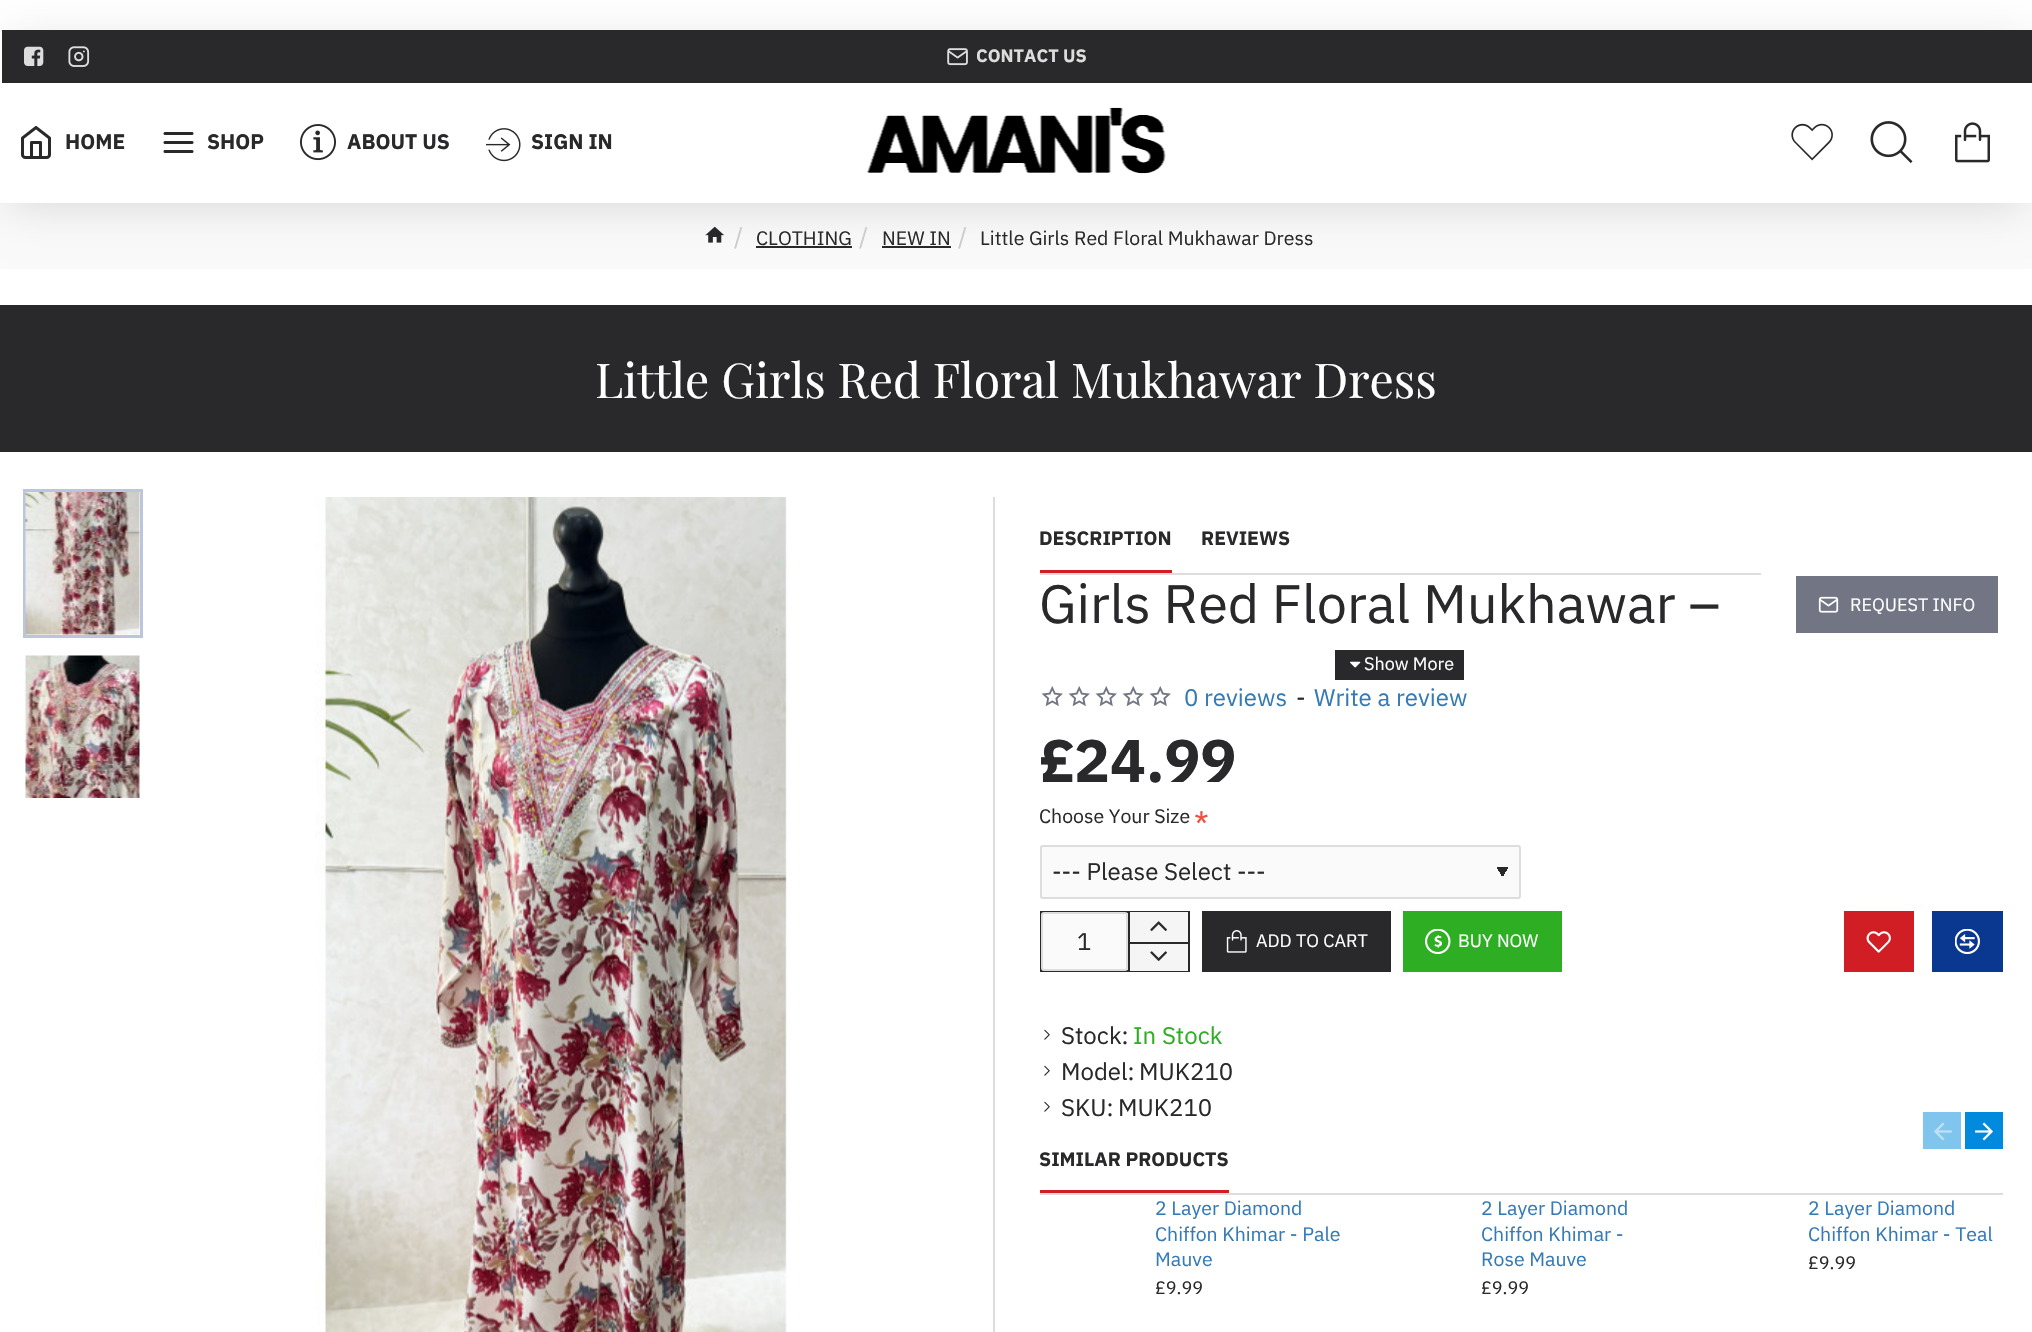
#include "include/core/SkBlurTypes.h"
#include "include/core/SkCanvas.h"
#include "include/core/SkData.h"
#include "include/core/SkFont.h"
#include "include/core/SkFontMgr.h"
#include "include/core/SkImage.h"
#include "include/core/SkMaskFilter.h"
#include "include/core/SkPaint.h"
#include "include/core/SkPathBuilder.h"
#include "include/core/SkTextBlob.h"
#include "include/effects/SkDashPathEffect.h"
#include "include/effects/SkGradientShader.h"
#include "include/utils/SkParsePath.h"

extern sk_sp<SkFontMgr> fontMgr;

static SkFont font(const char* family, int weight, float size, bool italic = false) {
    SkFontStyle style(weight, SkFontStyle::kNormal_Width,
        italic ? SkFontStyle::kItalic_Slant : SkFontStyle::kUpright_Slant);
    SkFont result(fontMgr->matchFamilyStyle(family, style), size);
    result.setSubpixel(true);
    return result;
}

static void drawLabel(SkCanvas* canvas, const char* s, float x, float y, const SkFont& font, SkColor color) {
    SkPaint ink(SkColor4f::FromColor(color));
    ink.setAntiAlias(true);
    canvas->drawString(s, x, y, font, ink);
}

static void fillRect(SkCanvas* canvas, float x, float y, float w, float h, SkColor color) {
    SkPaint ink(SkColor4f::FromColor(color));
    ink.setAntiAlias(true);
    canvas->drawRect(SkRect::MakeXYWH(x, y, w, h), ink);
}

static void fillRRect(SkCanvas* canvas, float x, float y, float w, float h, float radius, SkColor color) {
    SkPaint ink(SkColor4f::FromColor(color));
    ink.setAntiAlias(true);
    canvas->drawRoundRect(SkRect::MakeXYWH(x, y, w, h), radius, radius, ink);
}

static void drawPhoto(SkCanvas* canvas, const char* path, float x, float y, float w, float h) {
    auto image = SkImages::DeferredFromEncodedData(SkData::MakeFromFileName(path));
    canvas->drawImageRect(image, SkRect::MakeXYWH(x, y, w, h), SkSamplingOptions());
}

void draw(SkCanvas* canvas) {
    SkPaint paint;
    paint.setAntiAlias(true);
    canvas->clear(0xFFFFFFFF);
    fillRect(canvas, 0, 203, 2032, 66, 0xFFFAFAFA);
    drawPhoto(canvas, "assets/img12.png", 705, 226, 19, 17);
    fillRect(canvas, 756, 246, 96, 2, 0xFF29292B);
    fillRect(canvas, 882, 246, 69, 2, 0xFF29292B);
    paint.setColor(0x26000000);
    paint.setMaskFilter(SkMaskFilter::MakeBlur(kNormal_SkBlurStyle, 22.5f));
    canvas->drawRect(SkRect::MakeXYWH(8, 45, 2017, 158), paint);
    paint.setMaskFilter(nullptr);
    fillRect(canvas, 0, 30, 2032, 173, 0xFFFFFFFF);
    fillRect(canvas, 2, 30, 2030, 53, 0xFF29292B);
    drawPhoto(canvas, "assets/img1.png", 24, 46, 20, 20);
    drawPhoto(canvas, "assets/img2.png", 68, 46, 22, 21);
    drawPhoto(canvas, "assets/img3.png", 947, 48, 21, 18);
    canvas->save();
    canvas->clipRect(SkRect::MakeXYWH(977, 42, 111, 29));
    SkFont font1 = font("IBM Plex Sans", 700, 18);
    drawLabel(canvas, "CONTACT US", 976, 62, font1, 0xFFDDDDDD);
    canvas->restore();
    drawPhoto(canvas, "assets/img4.png", 21, 126, 30, 33);
    SkFont font2 = font("IBM Plex Sans", 700, 21);
    drawLabel(canvas, "HOME", 65, 149, font2, 0xFF29292B);
    drawPhoto(canvas, "assets/img5.png", 163, 132, 31, 21);
    drawLabel(canvas, "SHOP", 207, 149, font2, 0xFF29292B);
    drawPhoto(canvas, "assets/img6.png", 300, 124, 36, 37);
    drawLabel(canvas, "ABOUT US", 347, 149, font2, 0xFF29292B);
    drawPhoto(canvas, "assets/img7.png", 486, 128, 35, 34);
    drawLabel(canvas, "SIGN IN", 531, 149, font2, 0xFF29292B);
    drawPhoto(canvas, "assets/img8.png", 867, 107, 299, 67);
    drawPhoto(canvas, "assets/img9.png", 1791, 123, 42, 38);
    drawPhoto(canvas, "assets/img10.png", 1870, 121, 43, 42);
    drawPhoto(canvas, "assets/img11.png", 1955, 122, 35, 41);
    SkFont font3 = font("IBM Plex Sans", 400, 24);
    drawLabel(canvas, "/", 734, 245, font3, 0xFFCCCCCC);
    SkFont font4 = font("IBM Plex Sans", 400, 19.5f);
    drawLabel(canvas, "CLOTHING", 756, 245, font4, 0xFF29292B);
    drawLabel(canvas, "/", 859, 245, font3, 0xFFCCCCCC);
    drawLabel(canvas, "NEW IN", 882, 245, font4, 0xFF29292B);
    drawLabel(canvas, "/", 958, 245, font3, 0xFFCCCCCC);
    drawLabel(canvas, "Little Girls Red Floral Mukhawar Dress", 980, 245, font4, 0xFF29292B);
    fillRect(canvas, 0, 305, 2032, 147, 0xFF29292B);
    SkFont font5 = font("Playfair Display", 400, 48);
    drawLabel(canvas, "Little Girls Red Floral Mukhawar Dress", 595, 398, font5, 0xFFFFFFFF);
    fillRect(canvas, 993, 497, 2, 835, 0xFFDDDDDD);
    paint.setStroke(true);
    paint.setStrokeWidth(3);
    paint.setColor(0xFFBBC6DD);
    canvas->drawRect(SkRect::MakeXYWH(24.5f, 490.5f, 117, 146), paint);
    drawPhoto(canvas, "assets/img13.png", 25, 492, 115, 143);
    drawPhoto(canvas, "assets/img14.png", 25, 655, 115, 143);
    drawPhoto(canvas, "assets/img15.png", 315, 497, 472, 835);
    fillRect(canvas, 1040, 573, 721, 2, 0xFFDDDDDD);
    fillRect(canvas, 1040, 570, 132, 3, 0xFFD01E24);
    SkFont font6 = font("IBM Plex Sans", 700, 19.5f);
    drawLabel(canvas, "DESCRIPTION", 1039, 545, font6, 0xFF29292B);
    drawLabel(canvas, "REVIEWS", 1201, 545, font6, 0xFF29292B);
    SkFont font7 = font("IBM Plex Sans", 400, 54);
    drawLabel(canvas, "Girls Red Floral Mukhawar –", 1039, 623, font7, 0xFF29292B);
    fillRect(canvas, 1335, 650, 129, 30, 0xFF29292B);
    drawPhoto(canvas, "assets/img16.png", 1350, 661, 11, 7);
    SkFont font8 = font("IBM Plex Sans", 400, 18);
    drawLabel(canvas, "Show More", 1364, 670, font8, 0xFFFFFFFF);
    fillRect(canvas, 1796, 576, 202, 57, 0xFF727684);
    drawPhoto(canvas, "assets/img17.png", 1818, 596, 21, 17);
    drawLabel(canvas, "REQUEST INFO", 1850, 611, font8, 0xFFFFFFFF);
    drawPhoto(canvas, "assets/img18.png", 1041, 686, 22, 21);
    drawPhoto(canvas, "assets/img18.png", 1068, 686, 22, 21);
    drawPhoto(canvas, "assets/img18.png", 1095, 686, 22, 21);
    drawPhoto(canvas, "assets/img18.png", 1122, 686, 22, 21);
    drawPhoto(canvas, "assets/img18.png", 1149, 686, 22, 21);
    drawLabel(canvas, "0 reviews", 1184, 706, font3, 0xFF337AB7);
    drawLabel(canvas, "-", 1296, 706, font3, 0xFF29292B);
    drawLabel(canvas, "Write a review", 1314, 706, font3, 0xFF337AB7);
    SkFont font9 = font("IBM Plex Sans", 700, 60);
    drawLabel(canvas, "£24.99", 1039, 782, font9, 0xFF29292B);
    drawLabel(canvas, "Choose Your Size", 1039, 823, font4, 0xFF29292B);
    SkFont font10 = font("IBM Plex Sans", 400, 33);
    drawLabel(canvas, "*", 1194, 836, font10, 0xFFEE5042);
    fillRRect(canvas, 1040, 845, 481, 54, 3, 0xFFFAFAFA);
    paint.setStroke(false);
    {
        const SkColor colors[] = {0xFF29292B, 0xFFFAFAFA};
        const float stops[] = {0.63f, 0.63f};
        const SkPoint ends[] = {{1513, 866}, {1492, 877}};
        paint.setShader(SkGradientShader::MakeLinear(ends, colors, stops, 2, SkTileMode::kClamp));
        paint.setAlpha(255);
    }
    canvas->drawRect(SkRect::MakeXYWH(1497, 867, 11, 9), paint);
    {
        const SkColor colors[] = {0x00FAFAFA, 0xFFFAFAFA};
        const float stops[] = {0.63f, 0.63f};
        const SkPoint ends[] = {{1492, 866}, {1513, 877}};
        paint.setShader(SkGradientShader::MakeLinear(ends, colors, stops, 2, SkTileMode::kClamp));
        paint.setAlpha(255);
    }
    canvas->drawRect(SkRect::MakeXYWH(1504, 869, 4, 7), paint);
    paint.setStroke(true);
    paint.setStrokeWidth(2);
    paint.setShader(nullptr);
    paint.setColor(0xFFDDDDDD);
    canvas->drawRoundRect(SkRect::MakeXYWH(1041, 846, 479, 52), 2, 2, paint);
    drawLabel(canvas, "--- Please Select ---", 1052, 880, font3, 0xFF29292B);
    paint.setColor(0xFF29292B);
    canvas->drawRect(SkRect::MakeXYWH(1041, 912, 148, 59), paint);
    paint.setStroke(false);
    paint.setColor(0xFFFAFAFA);
    canvas->drawRoundRect(SkRect::MakeXYWH(1042, 913, 85, 57), 2, 2, paint);
    paint.setStroke(true);
    paint.setColor(0xFFDDDDDD);
    canvas->drawRoundRect(SkRect::MakeXYWH(1042, 913, 85, 57), 2, 2, paint);
    drawLabel(canvas, "1", 1077, 950, font3, 0xFF29292B);
    fillRect(canvas, 1130, 912, 58, 30, 0xFFF5F5F5);
    fillRect(canvas, 1128, 912, 2, 30, 0xFF29292B);
    drawPhoto(canvas, "assets/img19.png", 1150, 921, 17, 10);
    fillRect(canvas, 1130, 944, 58, 27, 0xFFF5F5F5);
    fillRect(canvas, 1128, 942, 60, 2, 0xFF29292B);
    fillRect(canvas, 1128, 942, 2, 29, 0xFF29292B);
    drawPhoto(canvas, "assets/img20.png", 1150, 951, 17, 10);
    fillRect(canvas, 1202, 911, 189, 61, 0xFF29292B);
    drawPhoto(canvas, "assets/img21.png", 1226, 930, 21, 23);
    drawLabel(canvas, "ADD TO CART", 1256, 947, font8, 0xFFFFFFFF);
    fillRect(canvas, 1403, 911, 159, 61, 0xFF2EAF23);
    drawPhoto(canvas, "assets/img22.png", 1425, 929, 26, 25);
    drawLabel(canvas, "BUY NOW", 1458, 947, font8, 0xFFFFFFFF);
    fillRect(canvas, 1844, 911, 70, 61, 0xFFD01E24);
    drawPhoto(canvas, "assets/img23.png", 1866, 931, 25, 22);
    fillRect(canvas, 1932, 911, 71, 61, 0xFF0A378F);
    drawPhoto(canvas, "assets/img24.png", 1955, 929, 25, 25);
    drawPhoto(canvas, "assets/img25.png", 1044, 1029, 6, 11);
    drawLabel(canvas, "Stock:", 1061, 1044, font3, 0xFF29292B);
    drawLabel(canvas, "In Stock", 1133, 1044, font3, 0xFF2EAF23);
    drawPhoto(canvas, "assets/img25.png", 1044, 1065, 6, 11);
    drawLabel(canvas, "Model:", 1061, 1080, font3, 0xFF29292B);
    drawLabel(canvas, "MUK210", 1139, 1080, font3, 0xFF29292B);
    drawPhoto(canvas, "assets/img25.png", 1044, 1101, 6, 11);
    drawLabel(canvas, "SKU:", 1061, 1116, font3, 0xFF29292B);
    drawLabel(canvas, "MUK210", 1118, 1116, font3, 0xFF29292B);
    fillRect(canvas, 1040, 1193, 963, 2, 0xFFDDDDDD);
    fillRect(canvas, 1040, 1190, 189, 3, 0xFFD01E24);
    drawLabel(canvas, "SIMILAR PRODUCTS", 1039, 1166, font6, 0xFF29292B);
    fillRect(canvas, 1923, 1112, 38, 37, 0xFF80C5EE);
    drawPhoto(canvas, "assets/img26.png", 1934, 1122, 18, 19);
    fillRect(canvas, 1965, 1112, 38, 37, 0xFF008ADD);
    drawPhoto(canvas, "assets/img27.png", 1975, 1122, 18, 19);
    drawLabel(canvas, "2 Layer Diamond", 1155, 1215, font4, 0xFF337AB7);
    drawLabel(canvas, "Chiffon Khimar - Pale", 1155, 1241, font4, 0xFF337AB7);
    drawLabel(canvas, "Mauve", 1155, 1266, font4, 0xFF337AB7);
    drawLabel(canvas, "£9.99", 1155, 1294, font8, 0xFF29292B);
    drawLabel(canvas, "2 Layer Diamond", 1481, 1215, font4, 0xFF337AB7);
    drawLabel(canvas, "Chiffon Khimar -", 1481, 1241, font4, 0xFF337AB7);
    drawLabel(canvas, "Rose Mauve", 1481, 1266, font4, 0xFF337AB7);
    drawLabel(canvas, "£9.99", 1481, 1294, font8, 0xFF29292B);
    drawLabel(canvas, "2 Layer Diamond", 1808, 1215, font4, 0xFF337AB7);
    drawLabel(canvas, "Chiffon Khimar - Teal", 1808, 1241, font4, 0xFF337AB7);
    drawLabel(canvas, "£9.99", 1808, 1269, font8, 0xFF29292B);
}
